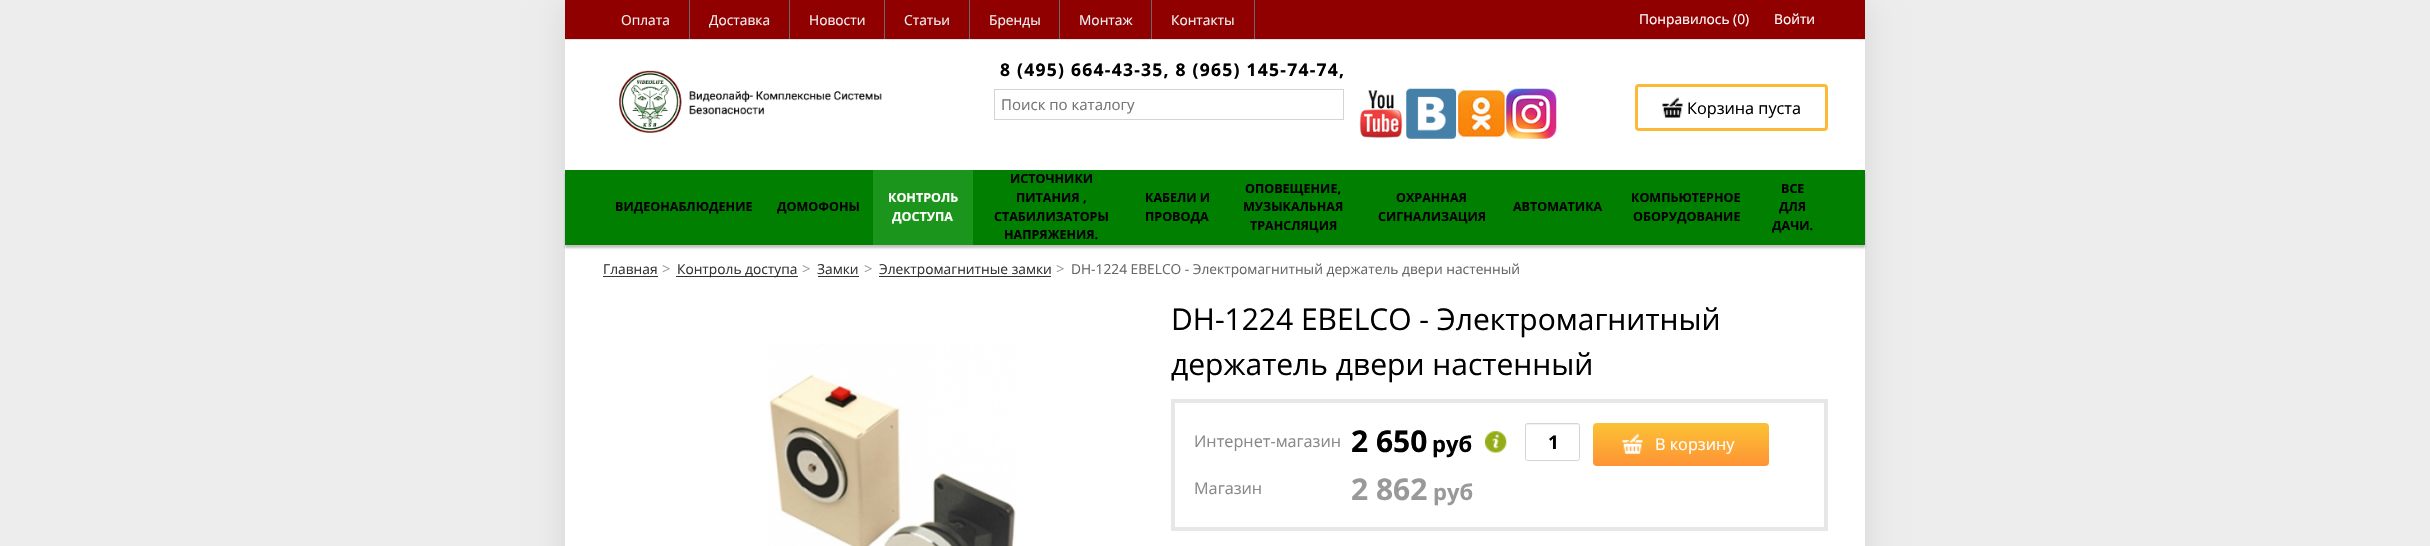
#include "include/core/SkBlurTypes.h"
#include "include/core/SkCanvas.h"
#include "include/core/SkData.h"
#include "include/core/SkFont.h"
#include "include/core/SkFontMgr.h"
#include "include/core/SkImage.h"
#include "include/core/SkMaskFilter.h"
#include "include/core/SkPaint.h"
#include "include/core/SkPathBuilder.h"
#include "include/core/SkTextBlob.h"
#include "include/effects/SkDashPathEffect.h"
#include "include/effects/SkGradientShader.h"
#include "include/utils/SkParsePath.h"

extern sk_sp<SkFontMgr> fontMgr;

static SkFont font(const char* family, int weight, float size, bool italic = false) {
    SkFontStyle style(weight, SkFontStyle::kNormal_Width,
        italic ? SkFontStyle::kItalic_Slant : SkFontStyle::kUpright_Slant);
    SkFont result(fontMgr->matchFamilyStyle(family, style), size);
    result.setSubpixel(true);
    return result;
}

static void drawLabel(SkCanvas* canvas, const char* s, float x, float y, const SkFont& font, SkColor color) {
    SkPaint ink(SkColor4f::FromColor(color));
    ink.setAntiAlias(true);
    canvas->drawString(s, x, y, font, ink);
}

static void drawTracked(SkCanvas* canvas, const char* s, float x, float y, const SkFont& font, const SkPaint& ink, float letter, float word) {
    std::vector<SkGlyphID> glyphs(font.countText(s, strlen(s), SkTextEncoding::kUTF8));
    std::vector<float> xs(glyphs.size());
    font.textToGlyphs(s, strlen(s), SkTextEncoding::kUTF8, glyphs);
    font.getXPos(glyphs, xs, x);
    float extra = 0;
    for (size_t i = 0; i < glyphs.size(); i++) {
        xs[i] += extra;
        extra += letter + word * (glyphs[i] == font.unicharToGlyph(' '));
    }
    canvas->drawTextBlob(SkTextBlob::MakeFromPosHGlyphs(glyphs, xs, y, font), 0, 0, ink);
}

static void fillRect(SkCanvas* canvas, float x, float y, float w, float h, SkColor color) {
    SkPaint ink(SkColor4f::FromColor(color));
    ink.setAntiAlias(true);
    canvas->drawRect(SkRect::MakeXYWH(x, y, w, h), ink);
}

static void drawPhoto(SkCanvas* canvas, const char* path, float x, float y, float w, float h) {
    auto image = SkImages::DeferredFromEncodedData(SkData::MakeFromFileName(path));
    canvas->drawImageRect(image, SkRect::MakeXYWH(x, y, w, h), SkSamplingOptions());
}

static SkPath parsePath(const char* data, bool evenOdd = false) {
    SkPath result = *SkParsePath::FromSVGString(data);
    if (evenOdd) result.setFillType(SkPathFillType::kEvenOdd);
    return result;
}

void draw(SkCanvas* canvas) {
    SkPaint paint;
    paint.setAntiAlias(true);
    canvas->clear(0xFFEDEDED);
    paint.setColor(0x1A000000);
    paint.setMaskFilter(SkMaskFilter::MakeBlur(kNormal_SkBlurStyle, 15.5f));
    canvas->drawRect(SkRect::MakeXYWH(565, 6, 1300, 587), paint);
    paint.setMaskFilter(nullptr);
    fillRect(canvas, 565, 40, 1300, 506, 0xFFFFFFFF);
    fillRect(canvas, 565, 0, 1300, 39, 0xFF900000);
    fillRect(canvas, 565, 39, 1300, 1, 0xFFE4E4E4);
    fillRect(canvas, 689, 0, 1, 39, 0xFF696969);
    SkFont font1 = font("Open Sans", 400, 13.75f);
    drawLabel(canvas, "Оплата", 621, 25, font1, 0xFFF2F2F2);
    fillRect(canvas, 789, 0, 1, 39, 0xFF696969);
    drawLabel(canvas, "Доставка", 709, 25, font1, 0xFFF2F2F2);
    fillRect(canvas, 884, 0, 1, 39, 0xFF696969);
    drawLabel(canvas, "Новости", 809, 25, font1, 0xFFF2F2F2);
    fillRect(canvas, 969, 0, 1, 39, 0xFF696969);
    drawLabel(canvas, "Статьи", 904, 25, font1, 0xFFF2F2F2);
    fillRect(canvas, 1059, 0, 1, 39, 0xFF696969);
    drawLabel(canvas, "Бренды", 989, 25, font1, 0xFFF2F2F2);
    fillRect(canvas, 1151, 0, 1, 39, 0xFF696969);
    drawLabel(canvas, "Монтаж", 1079, 25, font1, 0xFFF2F2F2);
    fillRect(canvas, 1254, 0, 1, 39, 0xFF696969);
    drawLabel(canvas, "Контакты", 1171, 25, font1, 0xFFF2F2F2);
    drawLabel(canvas, "Понравилось (0)", 1639, 24, font1, 0xFFFFFFFF);
    drawLabel(canvas, "Войти", 1774, 24, font1, 0xFFFFFFFF);
    drawPhoto(canvas, "assets/img1.png", 619, 70, 263, 63);
    SkFont font2 = font("Open Sans", 700, 17.5f);
    paint.setColor(0xFF000000);
    drawTracked(canvas, "8 (495) 664-43-35, 8 (965) 145-74-74,", 1000, 76, font2, paint, 1.25f, 0);
    paint.setStroke(true);
    paint.setStrokeWidth(1);
    paint.setColor(0xFFD4D4D4);
    canvas->drawRect(SkRect::MakeXYWH(994.5f, 89.5f, 349, 30), paint);
    SkFont font3 = font("Open Sans", 400, 15);
    drawLabel(canvas, "Поиск по каталогу", 1001, 110, font3, 0xFF757575);
    drawPhoto(canvas, "assets/img2.png", 1359, 90, 44, 48);
    drawPhoto(canvas, "assets/img3.png", 1406, 88, 51, 51);
    drawPhoto(canvas, "assets/img4.png", 1456, 88, 51, 51);
    drawPhoto(canvas, "assets/img5.png", 1506, 88, 51, 51);
    paint.setStrokeWidth(3);
    paint.setColor(0xFFFCB935);
    canvas->drawRoundRect(SkRect::MakeXYWH(1636.5f, 85.5f, 190, 44), 2.5f, 2.5f, paint);
    drawPhoto(canvas, "assets/img6.png", 1662, 97, 21, 21);
    SkFont font4 = font("Open Sans", 400, 16.25f);
    drawLabel(canvas, "Корзина пуста", 1687, 114, font4, 0xFF000000);
    paint.setStroke(false);
    paint.setColor(0x4D323232);
    paint.setMaskFilter(SkMaskFilter::MakeBlur(kNormal_SkBlurStyle, 1));
    canvas->drawRect(SkRect::MakeXYWH(565, 173, 1300, 75), paint);
    paint.setMaskFilter(nullptr);
    fillRect(canvas, 565, 170, 1300, 75, 0xFF007F00);
    SkFont font5 = font("Open Sans", 700, 12.5f);
    drawLabel(canvas, "ВИДЕОНАБЛЮДЕНИЕ", 615, 211, font5, 0xFF000000);
    drawLabel(canvas, "ДОМОФОНЫ", 777, 211, font5, 0xFF000000);
    fillRect(canvas, 873, 170, 100, 75, 0xFF1B951B);
    drawLabel(canvas, "КОНТРОЛЬ", 888, 202, font5, 0xFFFFFFFF);
    drawLabel(canvas, "ДОСТУПА", 892, 221, font5, 0xFFFFFFFF);
    drawLabel(canvas, "ИСТОЧНИКИ", 1010, 183, font5, 0xFF000000);
    drawLabel(canvas, "ПИТАНИЯ ,", 1016, 202, font5, 0xFF000000);
    drawLabel(canvas, "СТАБИЛИЗАТОРЫ", 994, 221, font5, 0xFF000000);
    drawLabel(canvas, "НАПРЯЖЕНИЯ.", 1004, 239, font5, 0xFF000000);
    drawLabel(canvas, "КАБЕЛИ И", 1145, 202, font5, 0xFF000000);
    drawLabel(canvas, "ПРОВОДА", 1145, 221, font5, 0xFF000000);
    drawLabel(canvas, "ОПОВЕЩЕНИЕ,", 1245, 193, font5, 0xFF000000);
    drawLabel(canvas, "МУЗЫКАЛЬНАЯ", 1243, 211, font5, 0xFF000000);
    drawLabel(canvas, "ТРАНСЛЯЦИЯ", 1250, 230, font5, 0xFF000000);
    drawLabel(canvas, "ОХРАННАЯ", 1396, 202, font5, 0xFF000000);
    drawLabel(canvas, "СИГНАЛИЗАЦИЯ", 1378, 221, font5, 0xFF000000);
    drawLabel(canvas, "АВТОМАТИКА", 1513, 211, font5, 0xFF000000);
    drawLabel(canvas, "КОМПЬЮТЕРНОЕ", 1631, 202, font5, 0xFF000000);
    drawLabel(canvas, "ОБОРУДОВАНИЕ", 1633, 221, font5, 0xFF000000);
    drawLabel(canvas, "ВСЕ", 1781, 193, font5, 0xFF000000);
    drawLabel(canvas, "ДЛЯ", 1779, 211, font5, 0xFF000000);
    drawLabel(canvas, "ДАЧИ.", 1772, 230, font5, 0xFF000000);
    drawLabel(canvas, "Главная", 603, 274, font1, 0xFF333333);
    fillRect(canvas, 603, 276, 55, 1, 0xFF333333);
    drawLabel(canvas, ">", 662, 274, font3, 0xFF999999);
    fillRect(canvas, 676, 276, 122, 1, 0xFF333333);
    drawLabel(canvas, "Контроль доступа", 677, 274, font1, 0xFF333333);
    drawLabel(canvas, ">", 802, 274, font3, 0xFF999999);
    drawLabel(canvas, "Замки", 817, 274, font1, 0xFF333333);
    fillRect(canvas, 818, 276, 41, 1, 0xFF333333);
    drawLabel(canvas, ">", 864, 274, font3, 0xFF999999);
    fillRect(canvas, 879, 276, 172, 1, 0xFF333333);
    drawLabel(canvas, "Электромагнитные замки", 879, 274, font1, 0xFF333333);
    drawLabel(canvas, ">", 1056, 274, font3, 0xFF999999);
    drawLabel(canvas, "DH-1224 EBELCO - Электромагнитный держатель двери настенный", 1071, 274, font1, 0xFF666666);
    drawPhoto(canvas, "assets/img7.png", 768, 344, 248, 202);
    SkFont font6 = font("Open Sans", 400, 30);
    drawLabel(canvas, "DH-1224 EBELCO - Электромагнитный", 1171, 330, font6, 0xFF000000);
    drawLabel(canvas, "держатель двери настенный", 1171, 375, font6, 0xFF000000);
    paint.setStroke(true);
    paint.setStrokeWidth(4);
    paint.setColor(0xFFE7E7E7);
    canvas->drawRect(SkRect::MakeXYWH(1173, 401, 653, 128), paint);
    drawLabel(canvas, "Интернет-магазин", 1194, 447, font4, 0xFF898989);
    SkFont font7 = font("Open Sans", 700, 30);
    drawLabel(canvas, "2 650", 1351, 452, font7, 0xFF000000);
    SkFont font8 = font("Open Sans", 700, 22);
    drawLabel(canvas, "руб", 1432, 452, font8, 0xFF000000);
    drawPhoto(canvas, "assets/img8.png", 1485, 431, 22, 22);
    paint.setStroke(false);
    paint.setColor(0xFFF1F1F1);
    canvas->drawPath(parsePath("M1528 425H1578C1579 425 1579 427 1579 427C1579 422 1577 424 1570 424H1527L1526 426Z"), paint);
    paint.setStroke(true);
    paint.setStrokeWidth(1);
    paint.setColor(0xFFD4D4D4);
    canvas->drawRoundRect(SkRect::MakeXYWH(1525.5f, 423.5f, 54, 37), 2, 2, paint);
    SkFont font9 = font("Open Sans", 700, 19);
    drawLabel(canvas, "1", 1548, 449, font9, 0xFF000000);
    paint.setStroke(false);
    {
        const SkColor colors[] = {0xFFFBC235, 0xFFFE9335};
        const float stops[] = {0, 1};
        const SkPoint ends[] = {{1681, 423}, {1681, 466}};
        paint.setShader(SkGradientShader::MakeLinear(ends, colors, stops, 2, SkTileMode::kClamp));
        paint.setAlpha(255);
    }
    canvas->drawRoundRect(SkRect::MakeXYWH(1593, 423, 176, 43), 4, 4, paint);
    drawPhoto(canvas, "assets/img9.png", 1622, 433, 21, 21);
    drawLabel(canvas, "В корзину", 1655, 450, font4, 0xFFFFFFFF);
    drawLabel(canvas, "Магазин", 1194, 494, font4, 0xFF898989);
    drawLabel(canvas, "2 862", 1351, 500, font7, 0xFF999999);
    drawLabel(canvas, "руб", 1433, 500, font8, 0xFF999999);
}
